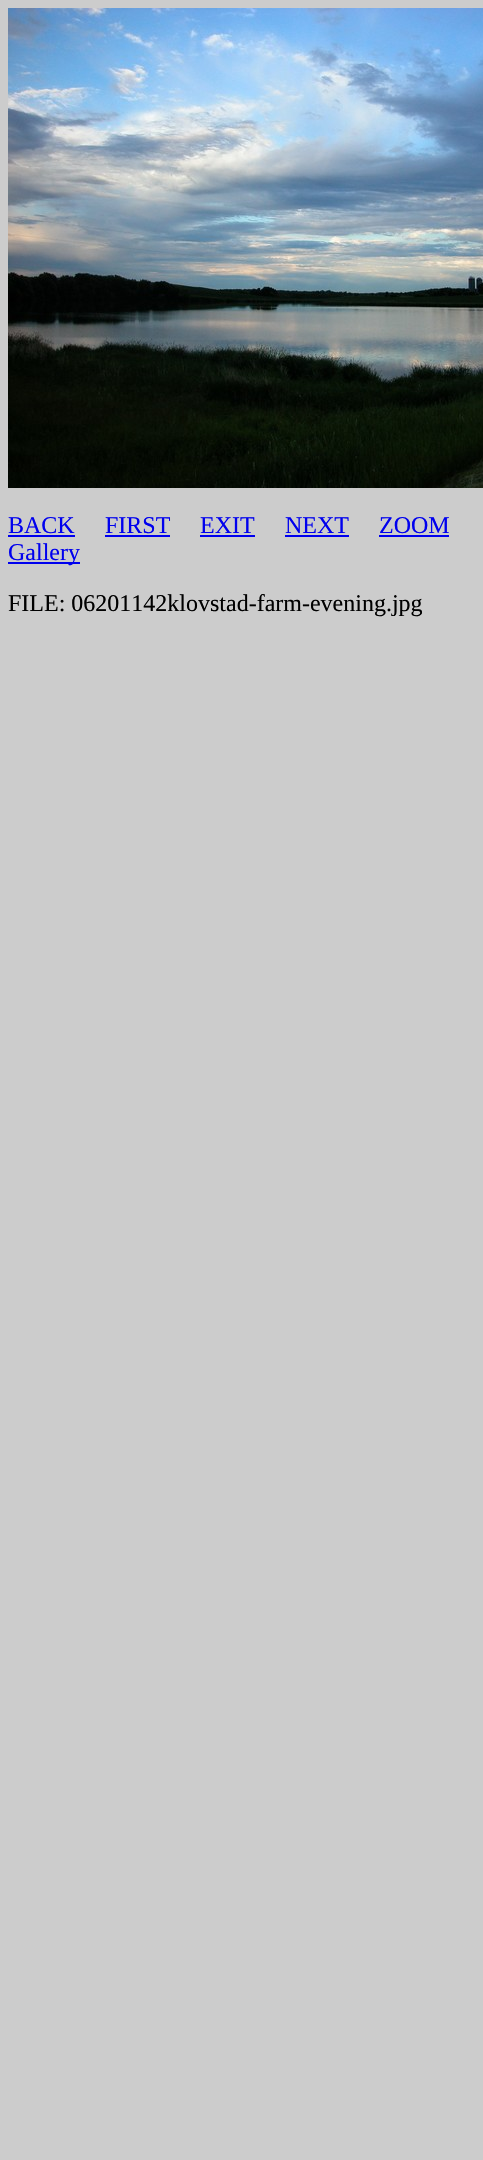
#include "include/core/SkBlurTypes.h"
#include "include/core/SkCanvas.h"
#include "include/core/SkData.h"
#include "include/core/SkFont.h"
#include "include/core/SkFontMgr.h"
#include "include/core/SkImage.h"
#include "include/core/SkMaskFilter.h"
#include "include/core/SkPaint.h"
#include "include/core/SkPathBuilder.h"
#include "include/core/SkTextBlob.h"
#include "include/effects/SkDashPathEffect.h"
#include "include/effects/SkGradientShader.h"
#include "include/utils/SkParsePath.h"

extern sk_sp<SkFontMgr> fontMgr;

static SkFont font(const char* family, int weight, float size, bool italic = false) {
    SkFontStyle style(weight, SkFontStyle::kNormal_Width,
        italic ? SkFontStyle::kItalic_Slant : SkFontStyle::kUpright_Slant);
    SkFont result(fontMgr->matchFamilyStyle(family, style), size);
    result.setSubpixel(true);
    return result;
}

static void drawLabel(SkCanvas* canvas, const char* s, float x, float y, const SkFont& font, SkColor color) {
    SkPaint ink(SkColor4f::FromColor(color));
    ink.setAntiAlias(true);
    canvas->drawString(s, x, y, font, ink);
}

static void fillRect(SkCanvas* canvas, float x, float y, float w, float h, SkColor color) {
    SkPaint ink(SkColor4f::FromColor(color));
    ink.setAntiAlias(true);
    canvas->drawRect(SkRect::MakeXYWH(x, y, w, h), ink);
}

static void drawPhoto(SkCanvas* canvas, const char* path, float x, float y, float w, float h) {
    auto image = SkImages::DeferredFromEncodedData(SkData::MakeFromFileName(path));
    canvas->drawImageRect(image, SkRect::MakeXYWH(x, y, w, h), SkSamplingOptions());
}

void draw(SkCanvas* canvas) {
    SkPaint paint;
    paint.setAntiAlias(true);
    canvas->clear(0xFFCCCCCC);
    drawPhoto(canvas, "assets/img1.png", 8, 8, 475, 480);
    SkFont font1 = font("Liberation Serif", 400, 24);
    drawLabel(canvas, "BACK", 8, 533, font1, 0xFF0000EE);
    fillRect(canvas, 8, 535, 67, 2, 0xFF0000EE);
    drawLabel(canvas, "FIRST", 105, 533, font1, 0xFF0000EE);
    fillRect(canvas, 105, 535, 65, 2, 0xFF0000EE);
    drawLabel(canvas, "EXIT", 200, 533, font1, 0xFF0000EE);
    fillRect(canvas, 200, 535, 55, 2, 0xFF0000EE);
    drawLabel(canvas, "NEXT", 285, 533, font1, 0xFF0000EE);
    fillRect(canvas, 285, 535, 64, 2, 0xFF0000EE);
    drawLabel(canvas, "ZOOM", 379, 533, font1, 0xFF0000EE);
    fillRect(canvas, 379, 535, 70, 2, 0xFF0000EE);
    fillRect(canvas, 8, 562, 72, 2, 0xFF0000EE);
    drawLabel(canvas, "Gallery", 8, 560, font1, 0xFF0000EE);
    drawLabel(canvas, "FILE: 06201142klovstad-farm-evening.jpg", 8, 611, font1, 0xFF000000);
}
